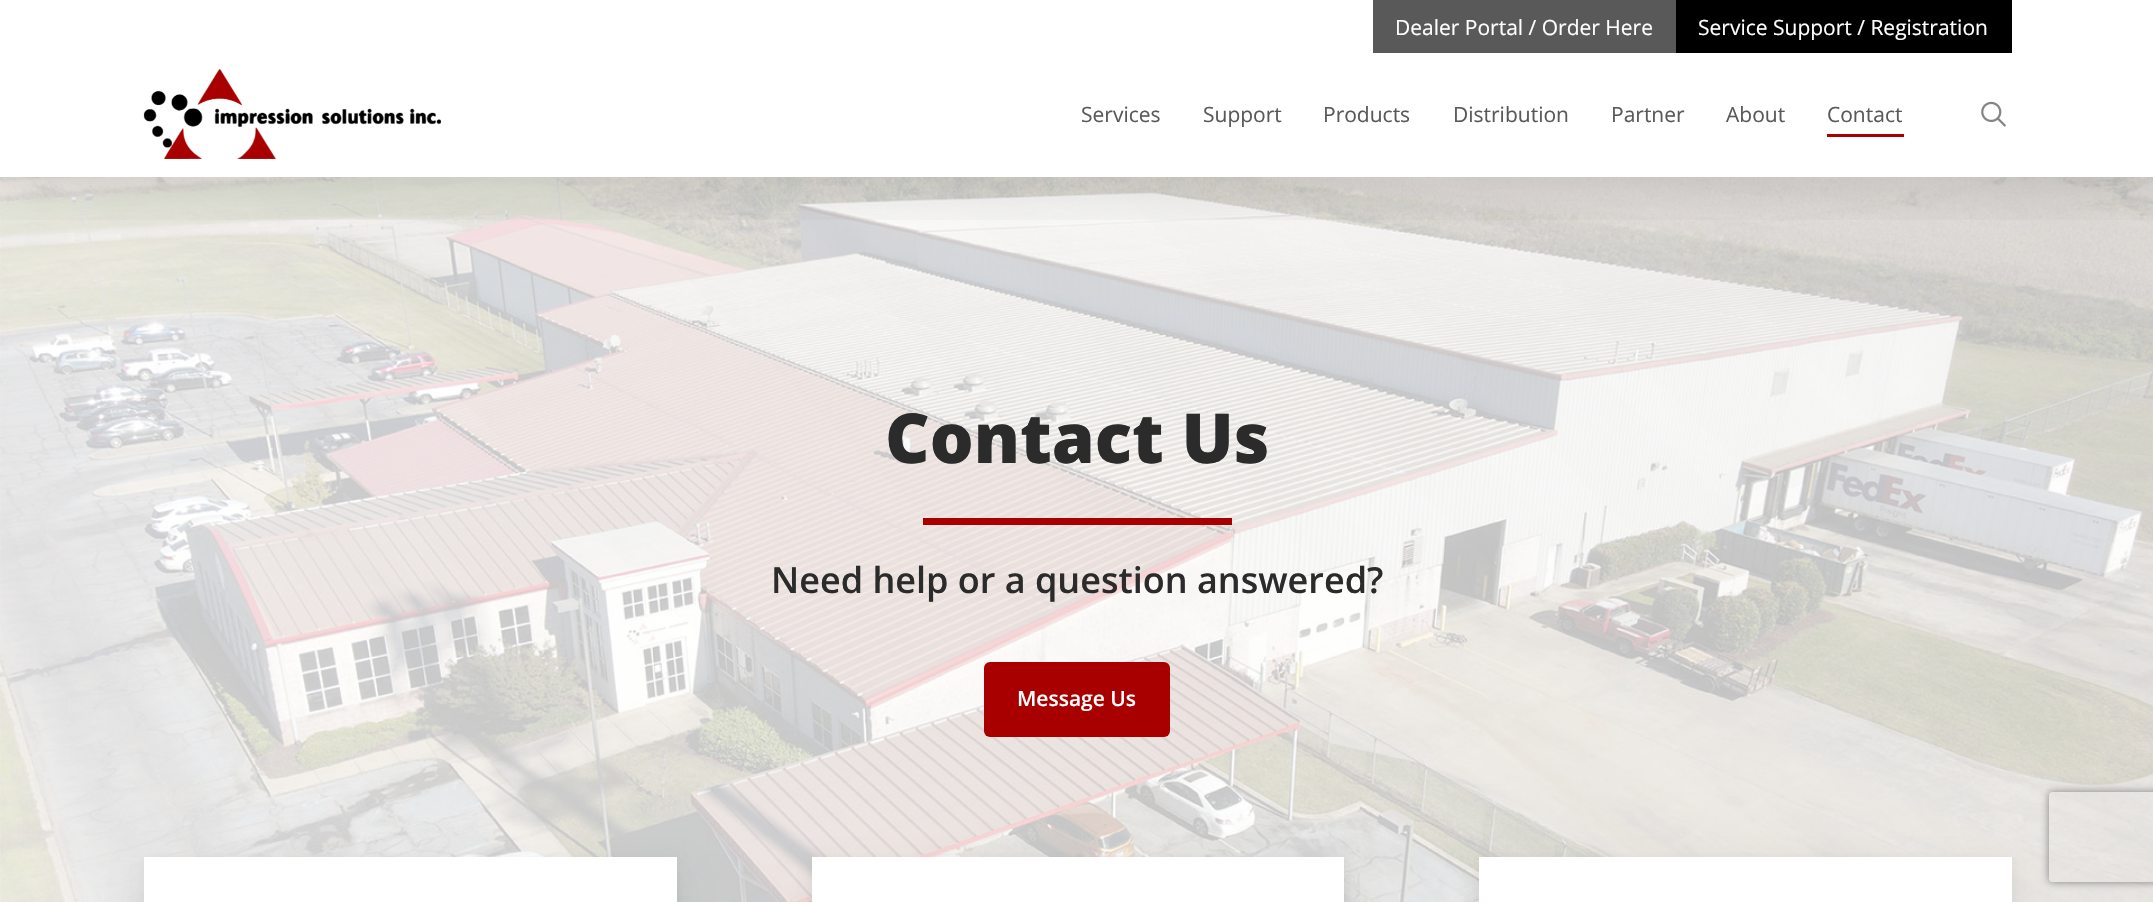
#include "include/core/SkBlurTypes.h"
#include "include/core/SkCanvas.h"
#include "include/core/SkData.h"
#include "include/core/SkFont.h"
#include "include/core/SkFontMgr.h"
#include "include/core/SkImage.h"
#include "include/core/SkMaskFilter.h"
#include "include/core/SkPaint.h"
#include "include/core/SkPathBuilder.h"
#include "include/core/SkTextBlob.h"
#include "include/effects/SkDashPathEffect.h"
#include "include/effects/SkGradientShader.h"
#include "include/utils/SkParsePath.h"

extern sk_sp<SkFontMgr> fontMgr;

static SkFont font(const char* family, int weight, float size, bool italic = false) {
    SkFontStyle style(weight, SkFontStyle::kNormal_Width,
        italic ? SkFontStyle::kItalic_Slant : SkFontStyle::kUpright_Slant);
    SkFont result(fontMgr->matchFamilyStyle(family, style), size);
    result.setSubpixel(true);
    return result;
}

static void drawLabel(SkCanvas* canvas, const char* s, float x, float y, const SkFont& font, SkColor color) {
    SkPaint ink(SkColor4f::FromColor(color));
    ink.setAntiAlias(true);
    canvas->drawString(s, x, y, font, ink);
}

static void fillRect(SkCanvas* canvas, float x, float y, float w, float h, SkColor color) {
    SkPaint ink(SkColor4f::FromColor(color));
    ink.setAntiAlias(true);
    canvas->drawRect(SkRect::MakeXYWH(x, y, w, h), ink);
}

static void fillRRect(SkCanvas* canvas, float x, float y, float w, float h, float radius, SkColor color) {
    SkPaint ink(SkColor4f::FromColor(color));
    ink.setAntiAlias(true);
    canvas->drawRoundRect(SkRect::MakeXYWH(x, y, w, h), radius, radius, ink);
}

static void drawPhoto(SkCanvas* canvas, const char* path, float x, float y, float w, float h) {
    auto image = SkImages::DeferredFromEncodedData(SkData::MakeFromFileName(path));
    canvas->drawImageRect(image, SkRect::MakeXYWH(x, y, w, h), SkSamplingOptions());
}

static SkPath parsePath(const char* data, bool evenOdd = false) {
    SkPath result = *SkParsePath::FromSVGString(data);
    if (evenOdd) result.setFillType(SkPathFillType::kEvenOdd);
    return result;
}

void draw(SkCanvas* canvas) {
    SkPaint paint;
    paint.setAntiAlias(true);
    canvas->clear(0xFFFFFFFF);
    drawPhoto(canvas, "assets/img3.png", 0, 177, 2153, 725);
    canvas->save();
    canvas->clipRect(SkRect::MakeXYWH(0, 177, 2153, 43));
    paint.setColor(0x26000000);
    paint.setMaskFilter(SkMaskFilter::MakeBlur(kNormal_SkBlurStyle, 34));
    canvas->drawRect(SkRect::MakeXYWH(0, 5, 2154, 177), paint);
    paint.setMaskFilter(nullptr);
    canvas->restore();
    fillRect(canvas, 1373, 0, 303, 53, 0xFF595959);
    SkFont font1 = font("Open Sans", 400, 21);
    drawLabel(canvas, "Dealer Portal / Order Here", 1395, 35, font1, 0xFFFFFFFF);
    fillRect(canvas, 1676, 0, 336, 53, 0xFF000000);
    drawLabel(canvas, "Service Support / Registration", 1698, 35, font1, 0xFFFFFFFF);
    drawPhoto(canvas, "assets/img1.png", 143, 69, 298, 90);
    drawLabel(canvas, "Services", 1081, 122, font1, 0xFF595959);
    drawLabel(canvas, "Support", 1203, 122, font1, 0xFF595959);
    drawLabel(canvas, "Products", 1323, 122, font1, 0xFF595959);
    drawLabel(canvas, "Distribution", 1453, 122, font1, 0xFF595959);
    drawLabel(canvas, "Partner", 1611, 122, font1, 0xFF595959);
    drawLabel(canvas, "About", 1726, 122, font1, 0xFF595959);
    drawLabel(canvas, "Contact", 1827, 122, font1, 0xFF595959);
    fillRect(canvas, 1827, 134, 77, 3, 0xFFA80000);
    drawPhoto(canvas, "assets/img2.png", 1981, 101, 25, 26);
    SkFont font2 = font("Open Sans", 800, 69);
    drawLabel(canvas, "Contact Us", 885, 463, font2, 0xFF2B2B2B);
    fillRect(canvas, 923, 518, 309, 7, 0xFFA80000);
    SkFont font3 = font("Open Sans", 600, 36);
    drawLabel(canvas, "Need help or a question answered?", 771, 593, font3, 0xFF2B2B2B);
    fillRRect(canvas, 984, 662, 186, 75, 6, 0xFFA80000);
    SkFont font4 = font("Open Sans", 600, 21);
    drawLabel(canvas, "Message Us", 1017, 706, font4, 0xFFFFFFFF);
    paint.setColor(0x0F000000);
    paint.setMaskFilter(SkMaskFilter::MakeBlur(kNormal_SkBlurStyle, 16.5f));
    canvas->drawRect(SkRect::MakeXYWH(144, 875, 533, 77), paint);
    paint.setMaskFilter(nullptr);
    paint.setColor(0x0D000000);
    paint.setMaskFilter(SkMaskFilter::MakeBlur(kNormal_SkBlurStyle, 5));
    canvas->drawRect(SkRect::MakeXYWH(144, 860, 533, 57), paint);
    paint.setMaskFilter(nullptr);
    fillRect(canvas, 144, 857, 533, 45, 0xFFFFFFFF);
    paint.setColor(0x0F000000);
    paint.setMaskFilter(SkMaskFilter::MakeBlur(kNormal_SkBlurStyle, 16.5f));
    canvas->drawRect(SkRect::MakeXYWH(812, 875, 532, 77), paint);
    paint.setMaskFilter(nullptr);
    paint.setColor(0x0D000000);
    paint.setMaskFilter(SkMaskFilter::MakeBlur(kNormal_SkBlurStyle, 5));
    canvas->drawRect(SkRect::MakeXYWH(812, 860, 532, 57), paint);
    paint.setMaskFilter(nullptr);
    fillRect(canvas, 812, 857, 532, 45, 0xFFFFFFFF);
    paint.setColor(0x0F000000);
    paint.setMaskFilter(SkMaskFilter::MakeBlur(kNormal_SkBlurStyle, 16.5f));
    canvas->drawRect(SkRect::MakeXYWH(1479, 875, 533, 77), paint);
    paint.setMaskFilter(nullptr);
    paint.setColor(0x0D000000);
    paint.setMaskFilter(SkMaskFilter::MakeBlur(kNormal_SkBlurStyle, 5));
    canvas->drawRect(SkRect::MakeXYWH(1479, 860, 533, 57), paint);
    paint.setMaskFilter(nullptr);
    fillRect(canvas, 1479, 857, 533, 45, 0xFFFFFFFF);
    canvas->save();
    canvas->clipPath(parsePath("M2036 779H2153V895H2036ZM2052 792H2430C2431.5 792 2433 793.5 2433 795V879C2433 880.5 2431.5 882 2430 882H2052C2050.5 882 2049 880.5 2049 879V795C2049 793.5 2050.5 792 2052 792Z", true), true);
    paint.setColor(0xFF808080);
    paint.setMaskFilter(SkMaskFilter::MakeBlur(kNormal_SkBlurStyle, 4));
    canvas->drawRoundRect(SkRect::MakeXYWH(2049, 792, 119, 90), 3, 3, paint);
    paint.setMaskFilter(nullptr);
    canvas->restore();
}
